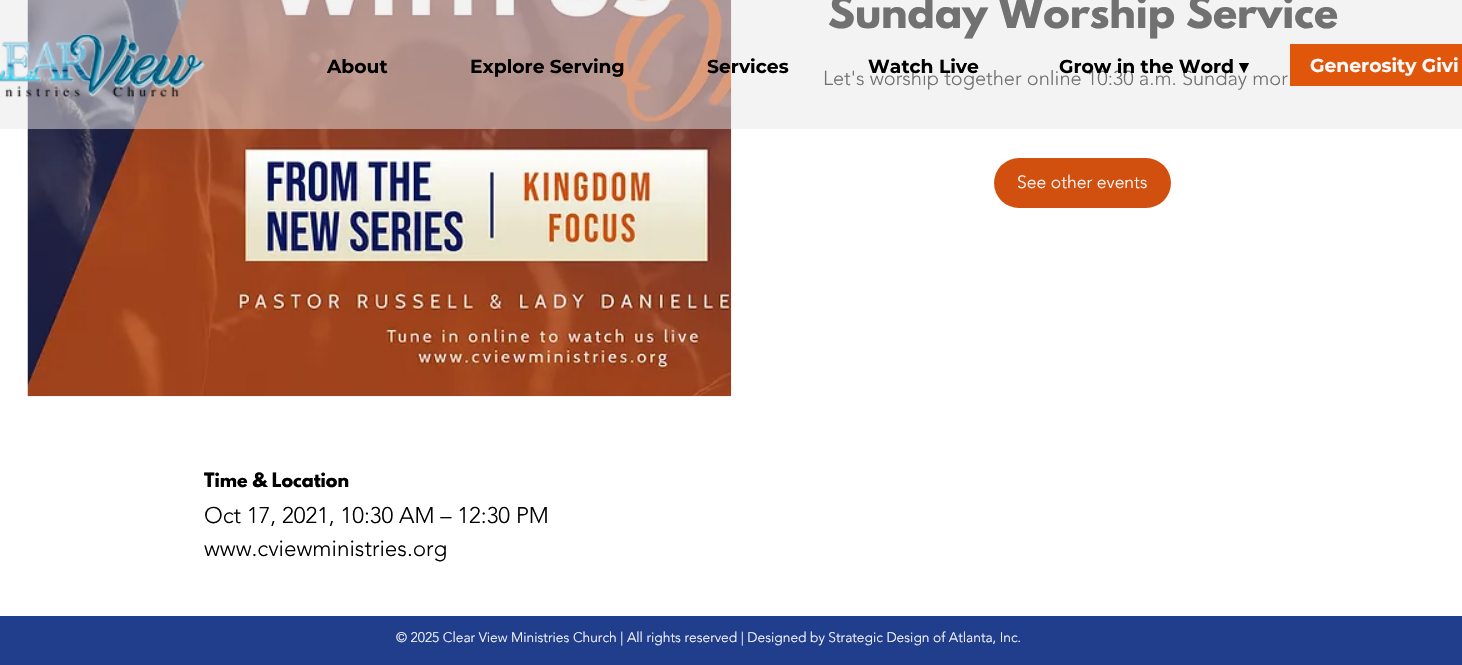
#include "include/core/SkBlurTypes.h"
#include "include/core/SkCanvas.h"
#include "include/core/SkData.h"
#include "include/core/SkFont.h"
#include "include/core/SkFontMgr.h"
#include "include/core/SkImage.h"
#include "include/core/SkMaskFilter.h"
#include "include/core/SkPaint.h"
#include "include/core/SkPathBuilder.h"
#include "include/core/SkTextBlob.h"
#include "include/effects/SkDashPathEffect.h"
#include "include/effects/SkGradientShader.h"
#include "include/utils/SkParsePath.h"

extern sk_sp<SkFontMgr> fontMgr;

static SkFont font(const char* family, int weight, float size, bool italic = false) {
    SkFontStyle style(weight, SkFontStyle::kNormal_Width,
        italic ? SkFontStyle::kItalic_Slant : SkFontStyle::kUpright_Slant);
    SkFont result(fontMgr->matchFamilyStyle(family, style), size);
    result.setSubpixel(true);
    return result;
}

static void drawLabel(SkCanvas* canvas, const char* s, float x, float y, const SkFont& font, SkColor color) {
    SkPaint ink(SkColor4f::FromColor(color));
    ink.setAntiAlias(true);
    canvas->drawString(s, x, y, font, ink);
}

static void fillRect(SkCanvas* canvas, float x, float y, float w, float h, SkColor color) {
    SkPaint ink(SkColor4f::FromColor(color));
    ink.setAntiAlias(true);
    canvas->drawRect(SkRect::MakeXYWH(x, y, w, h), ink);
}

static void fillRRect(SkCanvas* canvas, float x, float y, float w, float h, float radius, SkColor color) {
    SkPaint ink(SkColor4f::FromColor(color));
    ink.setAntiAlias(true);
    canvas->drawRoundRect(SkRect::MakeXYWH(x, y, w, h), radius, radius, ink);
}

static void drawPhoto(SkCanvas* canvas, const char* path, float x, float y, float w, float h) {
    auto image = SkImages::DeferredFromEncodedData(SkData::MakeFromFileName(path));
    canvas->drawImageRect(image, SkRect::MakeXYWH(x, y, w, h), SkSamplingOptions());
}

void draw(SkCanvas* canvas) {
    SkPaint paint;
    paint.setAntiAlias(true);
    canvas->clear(0xFFFFFFFF);
    drawPhoto(canvas, "assets/img1.png", 27, 0, 705, 397);
    SkFont font1 = font("League Spartan", 700, 40);
    drawLabel(canvas, "Sunday Worship Service", 828, 28, font1, 0xFF000000);
    SkFont font2 = font("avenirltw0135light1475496", 300, 20);
    drawLabel(canvas, "Let's worship together online 10:30 a.m. Sunday mor", 823, 85, font2, 0xFF000000);
    SkFont font3 = font("League Spartan", 700, 17.5f);
    drawLabel(canvas, "Time & Location", 204, 487, font3, 0xFF000000);
    SkFont font4 = font("avenirltw0135light1475496", 300, 22.5f);
    drawLabel(canvas, "Oct 17, 2021, 10:30 AM – 12:30 PM", 204, 523, font4, 0xFF000000);
    drawLabel(canvas, "www.cviewministries.org", 204, 556, font4, 0xFF000000);
    fillRRect(canvas, 994, 158, 177, 50, 25, 0xFFD2500F);
    SkFont font5 = font("avenirltw0135light1475496", 300, 17.5f);
    drawLabel(canvas, "See other events", 1017, 188, font5, 0xFFFAFAFA);
    fillRect(canvas, 0, 0, 1462, 129, 0x7DE8E6E6);
    drawPhoto(canvas, "assets/img2.png", 0, 33, 205, 65);
    SkFont font6 = font("Montserrat", 700, 18.75f);
    drawLabel(canvas, "About", 327, 73, font6, 0xFF000000);
    drawLabel(canvas, "Explore Serving", 470, 73, font6, 0xFF000000);
    drawLabel(canvas, "Services", 707, 73, font6, 0xFF000000);
    drawLabel(canvas, "Watch Live", 868, 73, font6, 0xFF000000);
    drawLabel(canvas, "Grow in the Word", 1059, 73, font6, 0xFF000000);
    SkFont font7 = font("DejaVu Sans", 700, 18.75f);
    drawLabel(canvas, "▾", 1239, 73, font7, 0xFF000000);
    fillRect(canvas, 1290, 44, 172, 42, 0xFFE0560B);
    drawLabel(canvas, "Generosity Givi", 1310, 72, font6, 0xFFFAFAFA);
    fillRect(canvas, 0, 616, 1462, 49, 0xFF213E8C);
    SkFont font8 = font("avenirltw0135light1475496", 300, 13.75f);
    drawLabel(canvas, "© 2025 Clear View Ministries Church | All rights reserved | Designed by Strategic Design of Atlanta, Inc.", 396, 642, font8, 0xFFFAFAFA);
}
